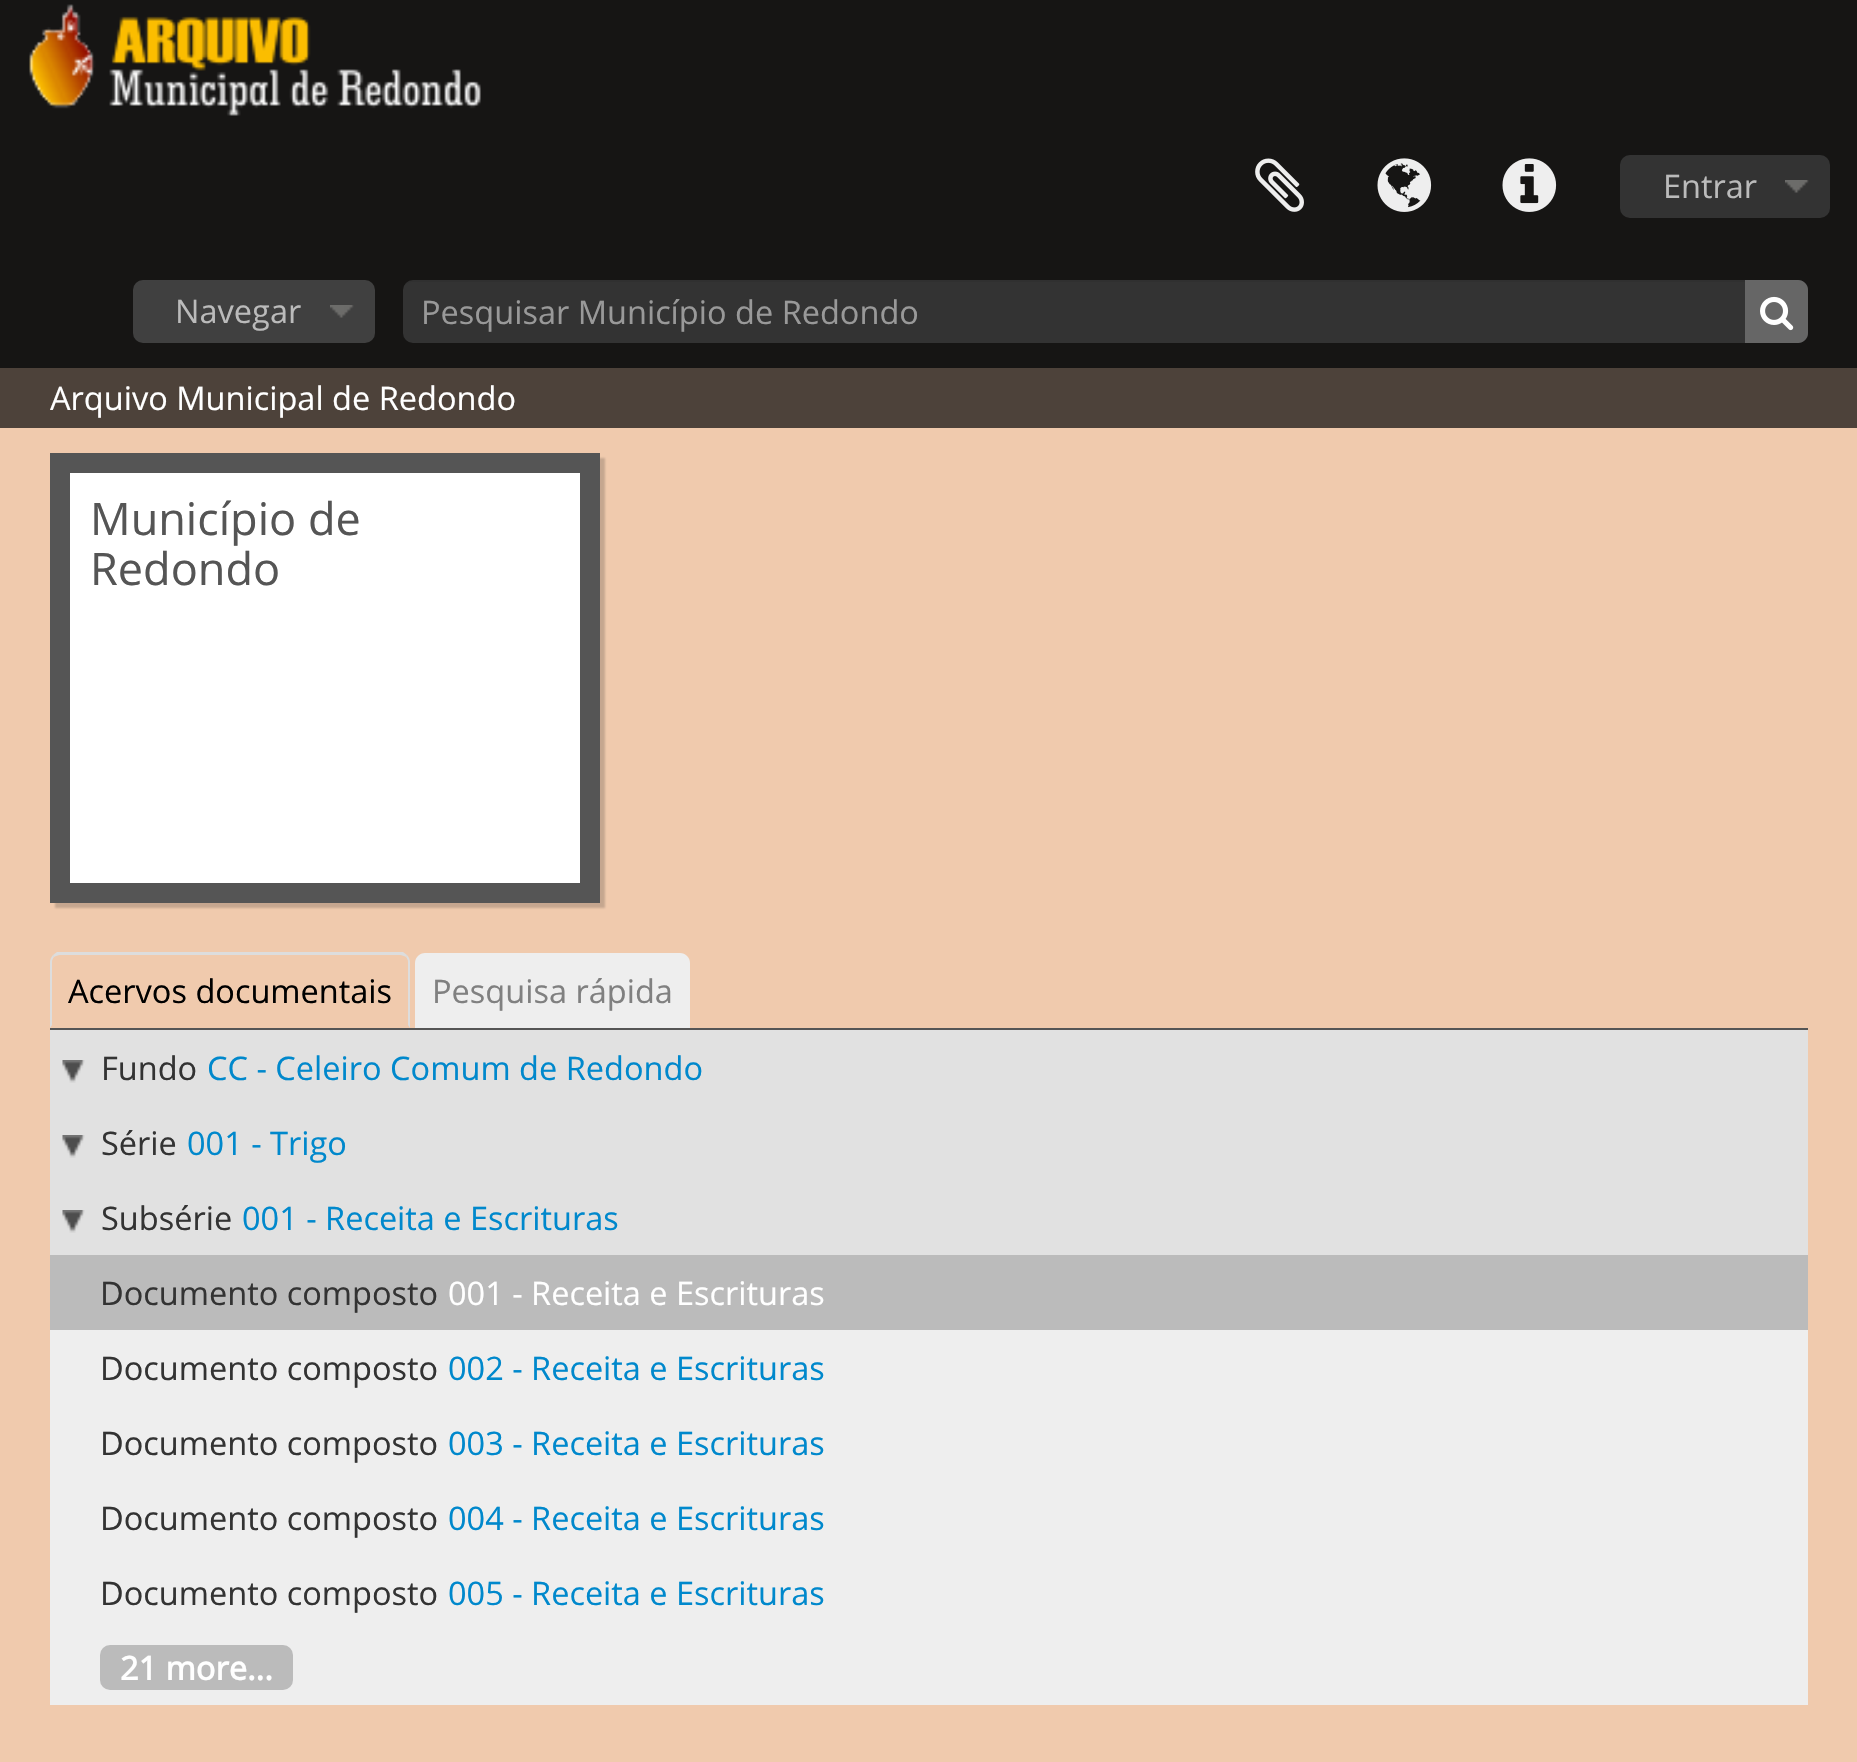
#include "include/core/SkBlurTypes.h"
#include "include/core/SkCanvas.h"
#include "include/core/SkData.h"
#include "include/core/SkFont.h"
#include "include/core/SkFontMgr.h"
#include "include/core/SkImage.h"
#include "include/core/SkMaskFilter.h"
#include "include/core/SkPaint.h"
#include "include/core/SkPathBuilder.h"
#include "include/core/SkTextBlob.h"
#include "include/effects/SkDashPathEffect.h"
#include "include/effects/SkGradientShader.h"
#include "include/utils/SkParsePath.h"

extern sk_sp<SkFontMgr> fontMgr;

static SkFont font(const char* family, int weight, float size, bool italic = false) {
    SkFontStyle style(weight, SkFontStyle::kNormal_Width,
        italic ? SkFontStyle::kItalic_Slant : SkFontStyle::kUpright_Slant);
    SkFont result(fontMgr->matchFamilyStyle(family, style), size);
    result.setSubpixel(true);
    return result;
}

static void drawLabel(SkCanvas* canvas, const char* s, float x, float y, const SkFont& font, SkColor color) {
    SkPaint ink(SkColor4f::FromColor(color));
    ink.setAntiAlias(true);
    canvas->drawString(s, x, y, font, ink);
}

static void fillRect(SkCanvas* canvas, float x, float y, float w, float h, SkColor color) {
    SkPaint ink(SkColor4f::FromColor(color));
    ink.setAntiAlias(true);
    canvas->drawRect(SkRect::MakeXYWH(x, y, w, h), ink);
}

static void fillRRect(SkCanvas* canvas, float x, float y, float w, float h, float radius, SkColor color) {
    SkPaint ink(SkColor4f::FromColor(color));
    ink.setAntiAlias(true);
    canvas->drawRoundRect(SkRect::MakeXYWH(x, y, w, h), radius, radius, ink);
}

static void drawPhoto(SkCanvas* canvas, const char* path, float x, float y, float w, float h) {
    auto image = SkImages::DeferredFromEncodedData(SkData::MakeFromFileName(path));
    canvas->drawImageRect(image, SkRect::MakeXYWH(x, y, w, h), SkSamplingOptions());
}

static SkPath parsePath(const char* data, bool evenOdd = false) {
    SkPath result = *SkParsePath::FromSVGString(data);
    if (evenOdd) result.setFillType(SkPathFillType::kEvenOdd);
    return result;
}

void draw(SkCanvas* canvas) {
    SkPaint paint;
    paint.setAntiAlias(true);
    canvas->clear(0xFFF0CAAD);
    fillRect(canvas, 0, 0, 1857, 368, 0xFF161514);
    drawPhoto(canvas, "assets/img1.png", 29, 4, 452, 112);
    drawPhoto(canvas, "assets/img2.png", 1255, 158, 49, 54);
    drawPhoto(canvas, "assets/img3.png", 1377, 158, 55, 54);
    drawPhoto(canvas, "assets/img4.png", 1502, 158, 55, 54);
    fillRRect(canvas, 1620, 155, 210, 63, 10, 0xFF333333);
    drawPhoto(canvas, "assets/img5.png", 1785, 180, 24, 13);
    SkFont font1 = font("Open Sans", 400, 32.5f);
    drawLabel(canvas, "Entrar", 1663, 198, font1, 0xFFBBBBBB);
    fillRRect(canvas, 133, 280, 242, 63, 10, 0xFF404040);
    drawPhoto(canvas, "assets/img6.png", 330, 305, 24, 13);
    drawLabel(canvas, "Navegar", 175, 323, font1, 0xFFBBBBBB);
    fillRRect(canvas, 403, 280, 1405, 63, 10, 0xFF333333);
    paint.setColor(0x12000000);
    canvas->drawPath(parsePath("M412 282H1798C1803 282 1808 287 1808 292V290C1808 284 1804 280 1798 280H413C408 280 404 283 403 287C405 284 409 282 412 282Z"), paint);
    drawLabel(canvas, "Pesquisar Município de Redondo", 421, 324, font1, 0xFF999999);
    paint.setColor(0xFF666666);
    canvas->drawPath(parsePath("M1745 280H1798C1803.5 280 1808 284.5 1808 290V333C1808 338.5 1803.5 343 1798 343H1745Z"), paint);
    drawPhoto(canvas, "assets/img7.png", 1760, 296, 34, 35);
    fillRect(canvas, 0, 368, 1857, 60, 0xFF4D423A);
    drawLabel(canvas, "Arquivo Municipal de Redondo", 50, 410, font1, 0xFFFFFFFF);
    paint.setColor(0x33191919);
    paint.setMaskFilter(SkMaskFilter::MakeBlur(kNormal_SkBlurStyle, 1));
    canvas->drawRect(SkRect::MakeXYWH(55, 458, 550, 450), paint);
    paint.setMaskFilter(nullptr);
    paint.setColor(0xFFFFFFFF);
    canvas->drawRect(SkRect::MakeXYWH(60, 463, 530, 430), paint);
    paint.setStroke(true);
    paint.setStrokeWidth(20);
    paint.setColor(0xFF555555);
    canvas->drawRect(SkRect::MakeXYWH(60, 463, 530, 430), paint);
    SkFont font2 = font("Open Sans", 400, 45);
    drawLabel(canvas, "Município de", 90, 535, font2, 0xFF555555);
    drawLabel(canvas, "Redondo", 90, 585, font2, 0xFF555555);
    fillRect(canvas, 50, 1028, 1758, 2, 0xFF555555);
    paint.setStroke(false);
    paint.setColor(0xFFDDDDDD);
    canvas->drawPath(parsePath("M60 955C58 955 56 956 54 957L53 955L57 952H403L407 955L406 957C404 956 402 955 400 955Z"), paint);
    canvas->drawPath(parsePath("M410 1028V962C410 960 409 957 407 955L406 957C407 958 408 960 408 962V1025Z"), paint);
    canvas->drawPath(parsePath("M50 1028L52 1025V962C52 960 53 958 54 957L53 955C51 957 50 960 50 962Z"), paint);
    drawLabel(canvas, "Acervos documentais", 68, 1003, font1, 0xFF000000);
    paint.setColor(0xFFEEEEEE);
    canvas->drawPath(parsePath("M425 953H680C685.5 953 690 957.5 690 963V1028H415V963C415 957.5 419.5 953 425 953Z"), paint);
    drawLabel(canvas, "Pesquisa rápida", 432, 1003, font1, 0xFF808080);
    fillRect(canvas, 50, 1330, 1758, 375, 0xFFEEEEEE);
    fillRect(canvas, 50, 1030, 1758, 225, 0xFFE1E1E1);
    drawPhoto(canvas, "assets/img8.png", 62, 1060, 23, 23);
    drawLabel(canvas, "Fundo", 101, 1080, font1, 0xFF333333);
    drawLabel(canvas, "CC - Celeiro Comum de Redondo", 207, 1080, font1, 0xFF0088CC);
    drawPhoto(canvas, "assets/img8.png", 62, 1135, 23, 23);
    drawLabel(canvas, "Série", 101, 1155, font1, 0xFF333333);
    drawLabel(canvas, "001 - Trigo", 187, 1155, font1, 0xFF0088CC);
    drawPhoto(canvas, "assets/img8.png", 62, 1210, 23, 23);
    drawLabel(canvas, "Subsérie", 101, 1230, font1, 0xFF333333);
    drawLabel(canvas, "001 - Receita e Escrituras", 242, 1230, font1, 0xFF0088CC);
    fillRect(canvas, 50, 1255, 1758, 75, 0xFFBBBBBB);
    drawLabel(canvas, "Documento composto", 100, 1305, font1, 0xFF333333);
    drawLabel(canvas, "001 - Receita e Escrituras", 448, 1305, font1, 0xFFFFFFFF);
    drawLabel(canvas, "Documento composto", 100, 1380, font1, 0xFF333333);
    drawLabel(canvas, "002 - Receita e Escrituras", 448, 1380, font1, 0xFF0088CC);
    drawLabel(canvas, "Documento composto", 100, 1455, font1, 0xFF333333);
    drawLabel(canvas, "003 - Receita e Escrituras", 448, 1455, font1, 0xFF0088CC);
    drawLabel(canvas, "Documento composto", 100, 1530, font1, 0xFF333333);
    drawLabel(canvas, "004 - Receita e Escrituras", 448, 1530, font1, 0xFF0088CC);
    drawLabel(canvas, "Documento composto", 100, 1605, font1, 0xFF333333);
    drawLabel(canvas, "005 - Receita e Escrituras", 448, 1605, font1, 0xFF0088CC);
    fillRRect(canvas, 100, 1645, 193, 45, 10, 0xFFBBBBBB);
    SkFont font3 = font("Open Sans", 700, 32.5f);
    drawLabel(canvas, "21 more...", 120, 1680, font3, 0xFFFFFFFF);
}
